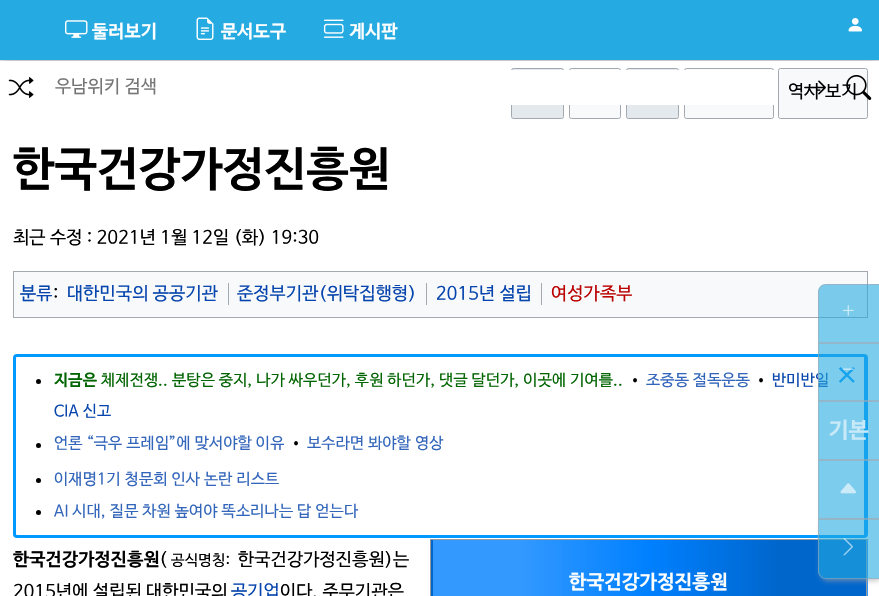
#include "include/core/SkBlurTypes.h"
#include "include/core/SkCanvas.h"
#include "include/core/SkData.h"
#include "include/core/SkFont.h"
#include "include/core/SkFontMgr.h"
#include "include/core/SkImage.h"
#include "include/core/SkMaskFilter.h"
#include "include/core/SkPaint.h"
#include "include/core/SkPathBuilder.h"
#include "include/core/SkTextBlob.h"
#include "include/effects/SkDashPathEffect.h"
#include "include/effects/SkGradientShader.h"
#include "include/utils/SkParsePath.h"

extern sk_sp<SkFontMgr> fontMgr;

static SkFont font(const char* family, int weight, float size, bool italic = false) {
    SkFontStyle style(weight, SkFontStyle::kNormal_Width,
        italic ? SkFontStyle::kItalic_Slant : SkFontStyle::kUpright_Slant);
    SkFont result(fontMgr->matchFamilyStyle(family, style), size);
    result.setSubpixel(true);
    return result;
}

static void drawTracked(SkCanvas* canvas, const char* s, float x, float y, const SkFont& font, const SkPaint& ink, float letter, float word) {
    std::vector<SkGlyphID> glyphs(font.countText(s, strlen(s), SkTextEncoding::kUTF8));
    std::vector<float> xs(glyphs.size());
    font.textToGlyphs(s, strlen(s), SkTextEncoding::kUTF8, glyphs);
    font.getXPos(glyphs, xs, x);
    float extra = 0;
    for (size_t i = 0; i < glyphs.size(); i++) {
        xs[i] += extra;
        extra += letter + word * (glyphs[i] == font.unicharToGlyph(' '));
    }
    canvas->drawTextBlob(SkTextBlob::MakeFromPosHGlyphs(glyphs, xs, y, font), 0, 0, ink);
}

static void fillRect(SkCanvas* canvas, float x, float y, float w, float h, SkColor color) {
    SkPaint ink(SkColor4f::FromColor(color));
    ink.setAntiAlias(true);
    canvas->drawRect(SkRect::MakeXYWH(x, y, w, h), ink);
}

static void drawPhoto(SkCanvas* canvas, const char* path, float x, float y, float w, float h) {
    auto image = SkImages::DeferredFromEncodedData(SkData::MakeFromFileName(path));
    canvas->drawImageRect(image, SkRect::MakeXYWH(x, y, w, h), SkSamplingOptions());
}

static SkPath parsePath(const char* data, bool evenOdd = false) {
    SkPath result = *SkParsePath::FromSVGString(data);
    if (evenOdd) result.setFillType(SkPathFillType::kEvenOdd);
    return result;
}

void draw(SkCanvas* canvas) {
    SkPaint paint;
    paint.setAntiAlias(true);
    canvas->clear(0xFFF1F1F1);
    paint.setColor(0x33000000);
    paint.setMaskFilter(SkMaskFilter::MakeBlur(kNormal_SkBlurStyle, 5));
    canvas->drawRect(SkRect::MakeXYWH(0, 5, 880, 60), paint);
    paint.setMaskFilter(nullptr);
    fillRect(canvas, 0, 0, 879, 60, 0xFF25AAE1);
    drawPhoto(canvas, "assets/img1.png", 65, 20, 23, 18);
    SkFont font1 = font("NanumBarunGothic", 700, 18);
    paint.setColor(0xFFFFFFFF);
    drawTracked(canvas, "둘러보기", 92, 37, font1, paint, 0.25f, 0);
    drawPhoto(canvas, "assets/img2.png", 196, 17, 18, 23);
    drawTracked(canvas, "문서도구", 221, 37, font1, paint, 0.25f, 0);
    drawPhoto(canvas, "assets/img3.png", 323, 19, 21, 19);
    drawTracked(canvas, "게시판", 349, 37, font1, paint, 0.25f, 0);
    drawPhoto(canvas, "assets/img4.png", 848, 18, 14, 14);
    fillRect(canvas, 0, 61, 879, 535, 0xFFFFFFFF);
    drawPhoto(canvas, "assets/img5.png", 8, 77, 26, 21);
    paint.setColor(0xFFE3E9EC);
    canvas->drawRoundRect(SkRect::MakeXYWH(511.5f, 68.5f, 52, 50), 2, 2, paint);
    paint.setStroke(true);
    paint.setStrokeWidth(1);
    paint.setColor(0xFFA2A9B1);
    canvas->drawRoundRect(SkRect::MakeXYWH(511.5f, 68.5f, 52, 50), 2, 2, paint);
    paint.setStroke(false);
    paint.setColor(0xFFF8F9FA);
    canvas->drawRoundRect(SkRect::MakeXYWH(569.5f, 68.5f, 51, 50), 2, 2, paint);
    paint.setStroke(true);
    paint.setColor(0xFFA2A9B1);
    canvas->drawRoundRect(SkRect::MakeXYWH(569.5f, 68.5f, 51, 50), 2, 2, paint);
    paint.setStroke(false);
    paint.setColor(0xFFE3E9EC);
    canvas->drawRoundRect(SkRect::MakeXYWH(626.5f, 68.5f, 52, 50), 2, 2, paint);
    paint.setStroke(true);
    paint.setColor(0xFFA2A9B1);
    canvas->drawRoundRect(SkRect::MakeXYWH(626.5f, 68.5f, 52, 50), 2, 2, paint);
    paint.setStroke(false);
    paint.setColor(0xFFF8F9FA);
    canvas->drawRoundRect(SkRect::MakeXYWH(684.5f, 68.5f, 89, 50), 2, 2, paint);
    paint.setStroke(true);
    paint.setColor(0xFFA2A9B1);
    canvas->drawRoundRect(SkRect::MakeXYWH(684.5f, 68.5f, 89, 50), 2, 2, paint);
    fillRect(canvas, 511, 70, 263, 35, 0xFFFFFFFF);
    canvas->save();
    canvas->clipRect(SkRect::MakeXYWH(55, 78, 711, 20));
    SkFont font2 = font("NanumBarunGothic", 400, 18);
    paint.setStroke(false);
    paint.setColor(0xFF757575);
    drawTracked(canvas, "우남위키 검색", 55, 92, font2, paint, 0.25f, 0);
    canvas->restore();
    paint.setColor(0xFFF8F9FA);
    canvas->drawRoundRect(SkRect::MakeXYWH(778.5f, 68.5f, 89, 50), 2, 2, paint);
    paint.setStroke(true);
    paint.setColor(0xFFA2A9B1);
    canvas->drawRoundRect(SkRect::MakeXYWH(778.5f, 68.5f, 89, 50), 2, 2, paint);
    paint.setStroke(false);
    paint.setColor(0xFF000000);
    drawTracked(canvas, "역사 보기", 788, 97, font2, paint, 0.25f, 0);
    drawPhoto(canvas, "assets/img6.png", 804, 80, 22, 15);
    drawPhoto(canvas, "assets/img7.png", 846, 75, 26, 25);
    SkFont font3 = font("NanumBarunGothic", 700, 46.75f);
    drawTracked(canvas, "한국건강가정진흥원", 13, 184, font3, paint, 0.25f, 0);
    drawTracked(canvas, "최근 수정 : 2021년 1월 12일 (화) 19:30", 13, 243, font2, paint, 0.25f, 0);
    paint.setColor(0xFFF8F9FA);
    canvas->drawRect(SkRect::MakeXYWH(13.5f, 271.5f, 854, 46), paint);
    paint.setStroke(true);
    paint.setColor(0xFFA2A9B1);
    canvas->drawRect(SkRect::MakeXYWH(13.5f, 271.5f, 854, 46), paint);
    paint.setStroke(false);
    paint.setColor(0xFF0645AD);
    drawTracked(canvas, "분류", 20, 299, font2, paint, 0.25f, 0);
    paint.setColor(0xFF000000);
    drawTracked(canvas, ":", 53, 299, font2, paint, 0.25f, 0);
    paint.setColor(0xFF0645AD);
    drawTracked(canvas, "대한민국의 공공기관", 67, 299, font2, paint, 0.25f, 0);
    fillRect(canvas, 228, 283, 1, 22, 0xFFA2A9B1);
    drawTracked(canvas, "준정부기관(위탁집행형)", 237, 299, font2, paint, 0.25f, 0);
    fillRect(canvas, 426, 283, 1, 22, 0xFFA2A9B1);
    drawTracked(canvas, "2015년 설립", 436, 299, font2, paint, 0.25f, 0);
    fillRect(canvas, 541, 283, 1, 22, 0xFFA2A9B1);
    paint.setColor(0xFFBA0000);
    drawTracked(canvas, "여성가족부", 551, 299, font2, paint, 0.25f, 0);
    paint.setStroke(true);
    paint.setStrokeWidth(3);
    paint.setColor(0xFF0099FF);
    canvas->drawRoundRect(SkRect::MakeXYWH(14.5f, 355.5f, 852, 181), 2.5f, 2.5f, paint);
    fillRect(canvas, 864, 356, 1, 180, 0xFF0099FF);
    paint.setStroke(false);
    paint.setColor(0xFF000000);
    canvas->drawCircle(38.5f, 381.5f, 2.5f, paint);
    SkFont font4 = font("NanumBarunGothic", 700, 15.8f);
    paint.setColor(0xFF006400);
    drawTracked(canvas, "지금은", 54, 385, font4, paint, 0.25f, 0);
    SkFont font5 = font("NanumBarunGothic", 400, 15.8f);
    drawTracked(canvas, "체제전쟁.. 분탕은 중지, 나가 싸우던가, 후원 하던가, 댓글 달던가, 이곳에 기여를..", 101, 385, font5, paint, 0.25f, 0);
    paint.setColor(0xFF000000);
    drawTracked(canvas, "•", 628, 385, font5, paint, 0.25f, 0);
    paint.setColor(0xFF3366BB);
    drawTracked(canvas, "조중동 절독운동", 646, 385, font5, paint, 0.25f, 0);
    paint.setColor(0xFF000000);
    drawTracked(canvas, "•", 754, 385, font5, paint, 0.25f, 0);
    paint.setColor(0xFF0645AD);
    drawTracked(canvas, "반미반일", 772, 385, font5, paint, 0.25f, 0);
    drawTracked(canvas, "CIA 신고", 54, 416, font5, paint, 0.25f, 0);
    paint.setColor(0xFF000000);
    canvas->drawCircle(38.5f, 445.5f, 2.5f, paint);
    paint.setColor(0xFF3366BB);
    drawTracked(canvas, "언론 “극우 프레임”에 맞서야할 이유", 54, 448, font5, paint, 0.25f, 0);
    paint.setColor(0xFF000000);
    drawTracked(canvas, "•", 289, 448, font5, paint, 0.25f, 0);
    paint.setColor(0xFF3366BB);
    drawTracked(canvas, "보수라면 봐야할 영상", 307, 448, font5, paint, 0.25f, 0);
    paint.setColor(0xFF000000);
    canvas->drawCircle(38.5f, 480.5f, 2.5f, paint);
    paint.setColor(0xFF3366BB);
    drawTracked(canvas, "이재명1기 청문회 인사 논란 리스트", 54, 484, font5, paint, 0.25f, 0);
    paint.setColor(0xFF000000);
    canvas->drawCircle(38.5f, 512.5f, 2.5f, paint);
    paint.setColor(0xFF3366BB);
    drawTracked(canvas, "AI 시대, 질문 차원 높여야 똑소리나는 답 얻는다", 54, 516, font5, paint, 0.25f, 0);
    SkFont font6 = font("NanumBarunGothic", 400, 31);
    paint.setColor(0xFF0099FF);
    drawTracked(canvas, "×", 833, 386, font6, paint, 0.25f, 0);
    paint.setColor(0xFF000000);
    drawTracked(canvas, "한국건강가정진흥원", 13, 565, font1, paint, 0.25f, 0);
    drawTracked(canvas, "(", 159, 565, font2, paint, 0.25f, 0);
    SkFont font7 = font("NanumBarunGothic", 400, 15);
    drawTracked(canvas, "공식명칭:", 171, 565, font7, paint, 0.25f, 0);
    drawTracked(canvas, "한국건강가정진흥원)는", 238, 565, font2, paint, 0.25f, 0);
    drawTracked(canvas, "2015년에 설립된 대한민국의", 13, 597, font2, paint, 0.25f, 0);
    paint.setColor(0xFF0645AD);
    drawTracked(canvas, "공기업", 231, 597, font2, paint, 0.25f, 0);
    paint.setColor(0xFF000000);
    drawTracked(canvas, "이다. 주무기관은", 280, 597, font2, paint, 0.25f, 0);
    fillRect(canvas, 430, 539, 438, 1, 0xFF999999);
    fillRect(canvas, 866, 539, 1, 57, 0xFF999999);
    fillRect(canvas, 430, 539, 1, 57, 0xFF999999);
    {
        const SkColor colors[] = {0xFF3399FF, 0xFF0080FF, 0xFF0066CC};
        const float stops[] = {0.2f, 0.5f, 0.8f};
        const SkPoint ends[] = {{-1.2f, 584}, {433, 584}};
        paint.setShader(SkGradientShader::MakeLinear(ends, colors, stops, 3, SkTileMode::kClamp));
        paint.setAlpha(255);
    }
    canvas->drawRect(SkRect::MakeXYWH(431, 540, 2, 56), paint);
    {
        const SkColor colors[] = {0xFF3399FF, 0xFF0080FF, 0xFF0066CC};
        const float stops[] = {0.2f, 0.5f, 0.8f};
        const SkPoint ends[] = {{433, 584}, {866, 584}};
        paint.setShader(SkGradientShader::MakeLinear(ends, colors, stops, 3, SkTileMode::kClamp));
        paint.setAlpha(255);
    }
    canvas->drawRect(SkRect::MakeXYWH(433, 540, 433, 56), paint);
    {
        const SkColor colors[] = {0xFF3399FF, 0xFF0080FF, 0xFF0066CC};
        const float stops[] = {0.2f, 0.5f, 0.8f};
        const SkPoint ends[] = {{866, 584}, {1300, 584}};
        paint.setShader(SkGradientShader::MakeLinear(ends, colors, stops, 3, SkTileMode::kClamp));
        paint.setAlpha(255);
    }
    canvas->drawRect(SkRect::MakeXYWH(867, 540, 1, 56), paint);
    SkFont font8 = font("NanumBarunGothic", 700, 19.5f);
    paint.setShader(nullptr);
    paint.setColor(0xFFFFFFFF);
    drawTracked(canvas, "한국건강가정진흥원", 569, 588, font8, paint, 0.25f, 0);
    paint.setColor(0x9925AAE1);
    canvas->drawPath(parsePath("M826 284H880V343H818V292C818 287.5 821.5 284 826 284Z"), paint);
    paint.setStroke(true);
    paint.setStrokeWidth(1);
    paint.setColor(0x99A2A9B1);
    canvas->drawPath(parsePath("M826 284.5H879.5V342.5H818.5V292C818.5 288 822 284.5 826 284.5Z"), paint);
    drawPhoto(canvas, "assets/img8.png", 843, 305, 11, 11);
    fillRect(canvas, 818, 343, 61, 58, 0x9925AAE1);
    canvas->drawRect(SkRect::MakeXYWH(818.5f, 343.5f, 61, 57), paint);
    drawPhoto(canvas, "assets/img9.png", 843, 368, 11, 2);
    fillRect(canvas, 818, 401, 61, 59, 0x9925AAE1);
    canvas->drawRect(SkRect::MakeXYWH(818.5f, 401.5f, 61, 58), paint);
    SkFont font9 = font("NanumBarunGothic", 700, 22);
    paint.setStroke(false);
    paint.setColor(0xFFC8EAF8);
    drawTracked(canvas, "기본", 829, 437, font9, paint, 0.25f, 0);
    fillRect(canvas, 818, 460, 61, 59, 0x9925AAE1);
    paint.setStroke(true);
    paint.setColor(0x99A2A9B1);
    canvas->drawRect(SkRect::MakeXYWH(818.5f, 460.5f, 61, 58), paint);
    drawPhoto(canvas, "assets/img10.png", 840, 483, 16, 11);
    canvas->save();
    canvas->clipPath(parsePath("M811 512H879V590H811ZM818 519H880V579H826C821.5 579 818 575.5 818 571Z", true), true);
    paint.setStroke(false);
    paint.setColor(0x99A2A2A2);
    paint.setMaskFilter(SkMaskFilter::MakeBlur(kNormal_SkBlurStyle, 2.5f));
    canvas->drawRoundRect(SkRect::MakeXYWH(820, 521, 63, 60), 8, 8, paint);
    paint.setMaskFilter(nullptr);
    canvas->restore();
    paint.setColor(0x9925AAE1);
    canvas->drawPath(parsePath("M818 519H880V579H826C821.5 579 818 575.5 818 571Z"), paint);
    paint.setStroke(true);
    paint.setColor(0x99A2A9B1);
    canvas->drawPath(parsePath("M818.5 519.5H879.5V578.5H826C822 578.5 818.5 575 818.5 571Z"), paint);
    drawPhoto(canvas, "assets/img11.png", 843, 538, 10, 18);
}
